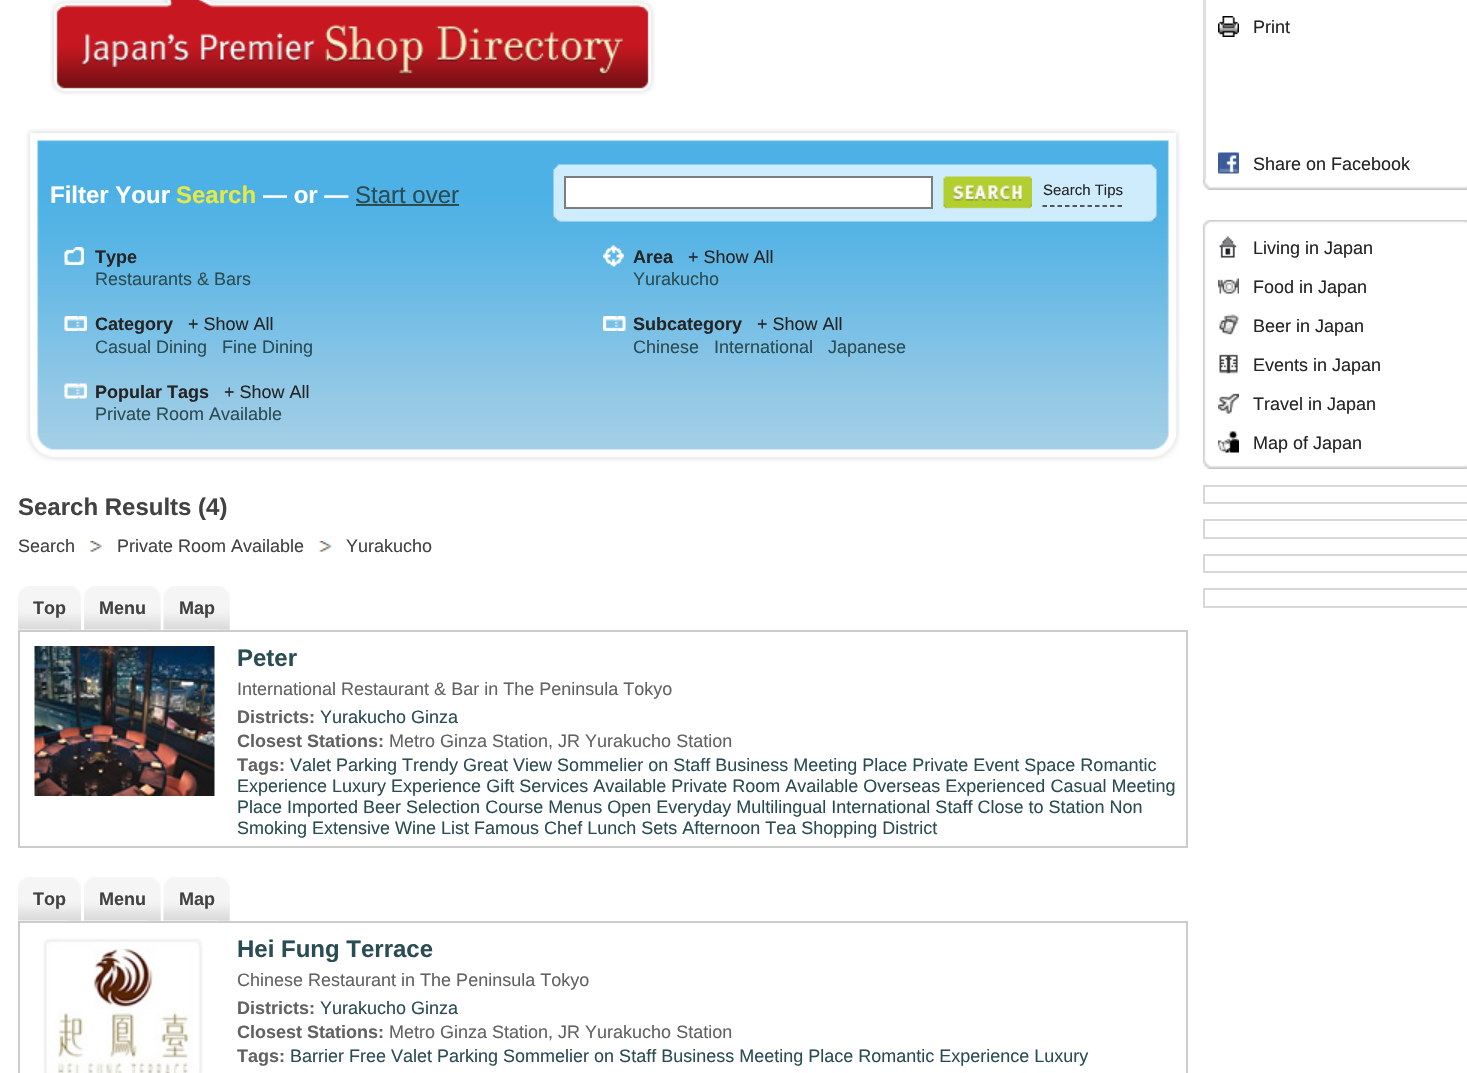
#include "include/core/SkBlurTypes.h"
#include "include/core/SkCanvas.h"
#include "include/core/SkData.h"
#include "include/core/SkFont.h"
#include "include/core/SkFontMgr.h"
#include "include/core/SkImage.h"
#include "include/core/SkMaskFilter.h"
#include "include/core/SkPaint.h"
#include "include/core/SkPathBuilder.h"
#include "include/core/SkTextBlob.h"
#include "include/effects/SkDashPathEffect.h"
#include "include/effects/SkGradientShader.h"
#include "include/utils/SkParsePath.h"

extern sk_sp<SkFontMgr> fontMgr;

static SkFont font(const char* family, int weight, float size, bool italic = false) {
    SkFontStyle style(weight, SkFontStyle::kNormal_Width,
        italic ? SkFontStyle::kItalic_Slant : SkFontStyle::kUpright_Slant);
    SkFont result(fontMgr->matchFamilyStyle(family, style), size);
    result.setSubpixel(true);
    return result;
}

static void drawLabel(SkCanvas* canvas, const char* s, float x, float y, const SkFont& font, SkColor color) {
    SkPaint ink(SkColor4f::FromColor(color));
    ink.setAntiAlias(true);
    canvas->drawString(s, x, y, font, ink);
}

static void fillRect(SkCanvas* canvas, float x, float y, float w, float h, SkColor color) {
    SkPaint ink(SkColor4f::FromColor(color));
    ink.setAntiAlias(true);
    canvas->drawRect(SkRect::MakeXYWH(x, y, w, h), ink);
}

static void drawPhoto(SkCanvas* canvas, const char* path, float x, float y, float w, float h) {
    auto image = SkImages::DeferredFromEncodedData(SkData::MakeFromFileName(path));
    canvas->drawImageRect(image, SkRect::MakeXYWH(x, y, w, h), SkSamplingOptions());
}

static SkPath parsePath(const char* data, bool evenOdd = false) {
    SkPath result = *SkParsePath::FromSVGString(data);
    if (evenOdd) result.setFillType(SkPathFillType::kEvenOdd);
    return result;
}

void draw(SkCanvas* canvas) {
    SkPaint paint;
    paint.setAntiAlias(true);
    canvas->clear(0xFFFFFFFF);
    drawPhoto(canvas, "assets/img1.png", 50, 0, 605, 95);
    drawPhoto(canvas, "assets/img2.png", 26, 129, 1154, 304);
    drawPhoto(canvas, "assets/img3.png", 26, 433, 1154, 30);
    SkFont font1 = font("Liberation Sans", 700, 24);
    drawLabel(canvas, "Filter Your", 50, 203, font1, 0xFFFFFFFF);
    drawLabel(canvas, "Search", 176, 203, font1, 0xFFE3E947);
    drawLabel(canvas, "— or —", 263, 203, font1, 0xFFFFFFFF);
    SkFont font2 = font("Liberation Sans", 400, 24);
    drawLabel(canvas, "Start over", 355, 203, font2, 0xFF2A4C53);
    fillRect(canvas, 356, 204, 103, 2, 0xFF2A4C53);
    drawPhoto(canvas, "assets/img4.png", 553, 164, 604, 58);
    paint.setColor(0xFFFFFFFF);
    canvas->drawRect(SkRect::MakeXYWH(565, 177, 367, 31), paint);
    paint.setStroke(true);
    paint.setStrokeWidth(2);
    paint.setColor(0xFF7D7D7D);
    canvas->drawRect(SkRect::MakeXYWH(565, 177, 367, 31), paint);
    drawPhoto(canvas, "assets/img5.png", 943, 176, 89, 33);
    paint.setStrokeWidth(1.5f);
    paint.setColor(0xFF252525);
    paint.setPathEffect(SkDashPathEffect::Make({{4.5f, 3}}, 0));
    canvas->drawPath(parsePath("M1042.5 206H1122"), paint);
    paint.setPathEffect(nullptr);
    SkFont font3 = font("Liberation Sans", 400, 15);
    drawLabel(canvas, "Search Tips", 1043, 195, font3, 0xFF252525);
    drawPhoto(canvas, "assets/img6.png", 64, 247, 20, 18);
    SkFont font4 = font("Liberation Sans", 700, 18);
    drawLabel(canvas, "Type", 95, 263, font4, 0xFF252525);
    SkFont font5 = font("Liberation Sans", 400, 18);
    drawLabel(canvas, "Restaurants & Bars", 95, 285, font5, 0xFF2A4C53);
    drawPhoto(canvas, "assets/img7.png", 603, 245, 21, 22);
    drawLabel(canvas, "Area", 633, 263, font4, 0xFF252525);
    drawLabel(canvas, "+ Show All", 688, 263, font5, 0xFF252525);
    drawLabel(canvas, "Yurakucho", 633, 285, font5, 0xFF2A4C53);
    drawPhoto(canvas, "assets/img8.png", 64, 316, 23, 15);
    drawLabel(canvas, "Category", 95, 330, font4, 0xFF252525);
    drawLabel(canvas, "+ Show All", 188, 330, font5, 0xFF252525);
    drawLabel(canvas, "Casual Dining", 95, 353, font5, 0xFF2A4C53);
    drawLabel(canvas, "Fine Dining", 222, 353, font5, 0xFF2A4C53);
    drawPhoto(canvas, "assets/img9.png", 603, 316, 23, 15);
    drawLabel(canvas, "Subcategory", 633, 330, font4, 0xFF252525);
    drawLabel(canvas, "+ Show All", 757, 330, font5, 0xFF252525);
    drawLabel(canvas, "Chinese", 633, 353, font5, 0xFF2A4C53);
    drawLabel(canvas, "International", 714, 353, font5, 0xFF2A4C53);
    drawLabel(canvas, "Japanese", 828, 353, font5, 0xFF2A4C53);
    drawPhoto(canvas, "assets/img10.png", 64, 383, 23, 16);
    drawLabel(canvas, "Popular Tags", 95, 398, font4, 0xFF252525);
    drawLabel(canvas, "+ Show All", 224, 398, font5, 0xFF252525);
    drawLabel(canvas, "Private Room Available", 95, 420, font5, 0xFF2A4C53);
    drawLabel(canvas, "Search Results (4)", 18, 515, font1, 0xFF424242);
    drawLabel(canvas, "Search", 18, 552, font5, 0xFF424242);
    drawPhoto(canvas, "assets/img11.png", 90, 541, 12, 11);
    drawLabel(canvas, "Private Room Available", 117, 552, font5, 0xFF424242);
    drawPhoto(canvas, "assets/img12.png", 319, 541, 13, 11);
    drawLabel(canvas, "Yurakucho", 346, 552, font5, 0xFF424242);
    drawPhoto(canvas, "assets/img13.png", 18, 586, 63, 44);
    drawPhoto(canvas, "assets/img14.png", 69, 586, 12, 44);
    drawLabel(canvas, "Top", 33, 614, font4, 0xFF424242);
    drawPhoto(canvas, "assets/img15.png", 84, 586, 77, 44);
    drawPhoto(canvas, "assets/img16.png", 148, 586, 13, 44);
    drawLabel(canvas, "Menu", 99, 614, font4, 0xFF424242);
    drawPhoto(canvas, "assets/img17.png", 163, 586, 67, 44);
    drawPhoto(canvas, "assets/img16.png", 217, 586, 13, 44);
    drawLabel(canvas, "Map", 179, 614, font4, 0xFF424242);
    paint.setStrokeWidth(2);
    paint.setColor(0xFFCCCCCC);
    canvas->drawRect(SkRect::MakeXYWH(19, 631, 1168, 216), paint);
    drawPhoto(canvas, "assets/img18.png", 34, 646, 181, 150);
    drawLabel(canvas, "Peter", 237, 666, font1, 0xFF2A4C53);
    drawLabel(canvas, "International Restaurant & Bar in The Peninsula Tokyo", 237, 695, font5, 0xFF626262);
    drawLabel(canvas, "Districts:", 237, 723, font4, 0xFF626262);
    drawLabel(canvas, "Yurakucho Ginza", 320, 723, font5, 0xFF2A4C53);
    drawLabel(canvas, "Closest Stations:", 237, 747, font4, 0xFF626262);
    drawLabel(canvas, "Metro Ginza Station, JR Yurakucho Station", 389, 747, font5, 0xFF626262);
    drawLabel(canvas, "Tags:", 237, 771, font4, 0xFF626262);
    drawLabel(canvas, "Valet Parking Trendy Great View Sommelier on Staff Business Meeting Place Private Event Space Romantic", 290, 771, font5, 0xFF2A4C53);
    drawLabel(canvas, "Experience Luxury Experience Gift Services Available Private Room Available Overseas Experienced Casual Meeting", 237, 792, font5, 0xFF2A4C53);
    drawLabel(canvas, "Place Imported Beer Selection Course Menus Open Everyday Multilingual International Staff Close to Station Non", 237, 813, font5, 0xFF2A4C53);
    drawLabel(canvas, "Smoking Extensive Wine List Famous Chef Lunch Sets Afternoon Tea Shopping District", 237, 834, font5, 0xFF2A4C53);
    drawPhoto(canvas, "assets/img13.png", 18, 877, 63, 44);
    drawPhoto(canvas, "assets/img14.png", 69, 877, 12, 44);
    drawLabel(canvas, "Top", 33, 905, font4, 0xFF424242);
    drawPhoto(canvas, "assets/img15.png", 84, 877, 77, 44);
    drawPhoto(canvas, "assets/img16.png", 148, 877, 13, 44);
    drawLabel(canvas, "Menu", 99, 905, font4, 0xFF424242);
    drawPhoto(canvas, "assets/img17.png", 163, 877, 67, 44);
    drawPhoto(canvas, "assets/img16.png", 217, 877, 13, 44);
    drawLabel(canvas, "Map", 179, 905, font4, 0xFF424242);
    canvas->drawRect(SkRect::MakeXYWH(19, 922, 1168, 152), paint);
    drawPhoto(canvas, "assets/img19.png", 43, 938, 160, 135);
    drawLabel(canvas, "Hei Fung Terrace", 237, 957, font1, 0xFF2A4C53);
    drawLabel(canvas, "Chinese Restaurant in The Peninsula Tokyo", 237, 986, font5, 0xFF626262);
    drawLabel(canvas, "Districts:", 237, 1014, font4, 0xFF626262);
    drawLabel(canvas, "Yurakucho Ginza", 320, 1014, font5, 0xFF2A4C53);
    drawLabel(canvas, "Closest Stations:", 237, 1038, font4, 0xFF626262);
    drawLabel(canvas, "Metro Ginza Station, JR Yurakucho Station", 389, 1038, font5, 0xFF626262);
    drawLabel(canvas, "Tags:", 237, 1062, font4, 0xFF626262);
    drawLabel(canvas, "Barrier Free Valet Parking Sommelier on Staff Business Meeting Place Romantic Experience Luxury", 290, 1062, font5, 0xFF2A4C53);
    fillRect(canvas, 1203, 0, 3, 180, 0xFFDFDFDF);
    drawPhoto(canvas, "assets/img20.png", 1203, 179, 264, 11);
    drawPhoto(canvas, "assets/img21.png", 1218, 16, 21, 21);
    drawLabel(canvas, "Print", 1253, 33, font5, 0xFF252525);
    drawPhoto(canvas, "assets/img22.png", 1218, 152, 21, 22);
    drawLabel(canvas, "Share on Facebook", 1253, 170, font5, 0xFF252525);
    drawPhoto(canvas, "assets/img23.png", 1203, 220, 264, 240);
    drawPhoto(canvas, "assets/img24.png", 1203, 460, 264, 9);
    drawPhoto(canvas, "assets/img25.png", 1219, 236, 18, 22);
    drawLabel(canvas, "Living in Japan", 1253, 254, font5, 0xFF252525);
    drawPhoto(canvas, "assets/img26.png", 1218, 278, 21, 16);
    drawLabel(canvas, "Food in Japan", 1253, 293, font5, 0xFF252525);
    drawPhoto(canvas, "assets/img27.png", 1219, 314, 20, 21);
    drawLabel(canvas, "Beer in Japan", 1253, 332, font5, 0xFF252525);
    drawPhoto(canvas, "assets/img28.png", 1219, 354, 19, 20);
    drawLabel(canvas, "Events in Japan", 1253, 371, font5, 0xFF252525);
    drawPhoto(canvas, "assets/img29.png", 1218, 393, 21, 21);
    drawLabel(canvas, "Travel in Japan", 1253, 410, font5, 0xFF252525);
    drawPhoto(canvas, "assets/img30.png", 1218, 431, 21, 22);
    drawLabel(canvas, "Map of Japan", 1253, 449, font5, 0xFF252525);
    paint.setColor(0xFFD7D7D7);
    canvas->drawRect(SkRect::MakeXYWH(1204, 486, 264, 17), paint);
    canvas->drawRect(SkRect::MakeXYWH(1204, 520, 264, 18), paint);
    canvas->drawRect(SkRect::MakeXYWH(1204, 555, 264, 17), paint);
    canvas->drawRect(SkRect::MakeXYWH(1204, 589, 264, 18), paint);
}
